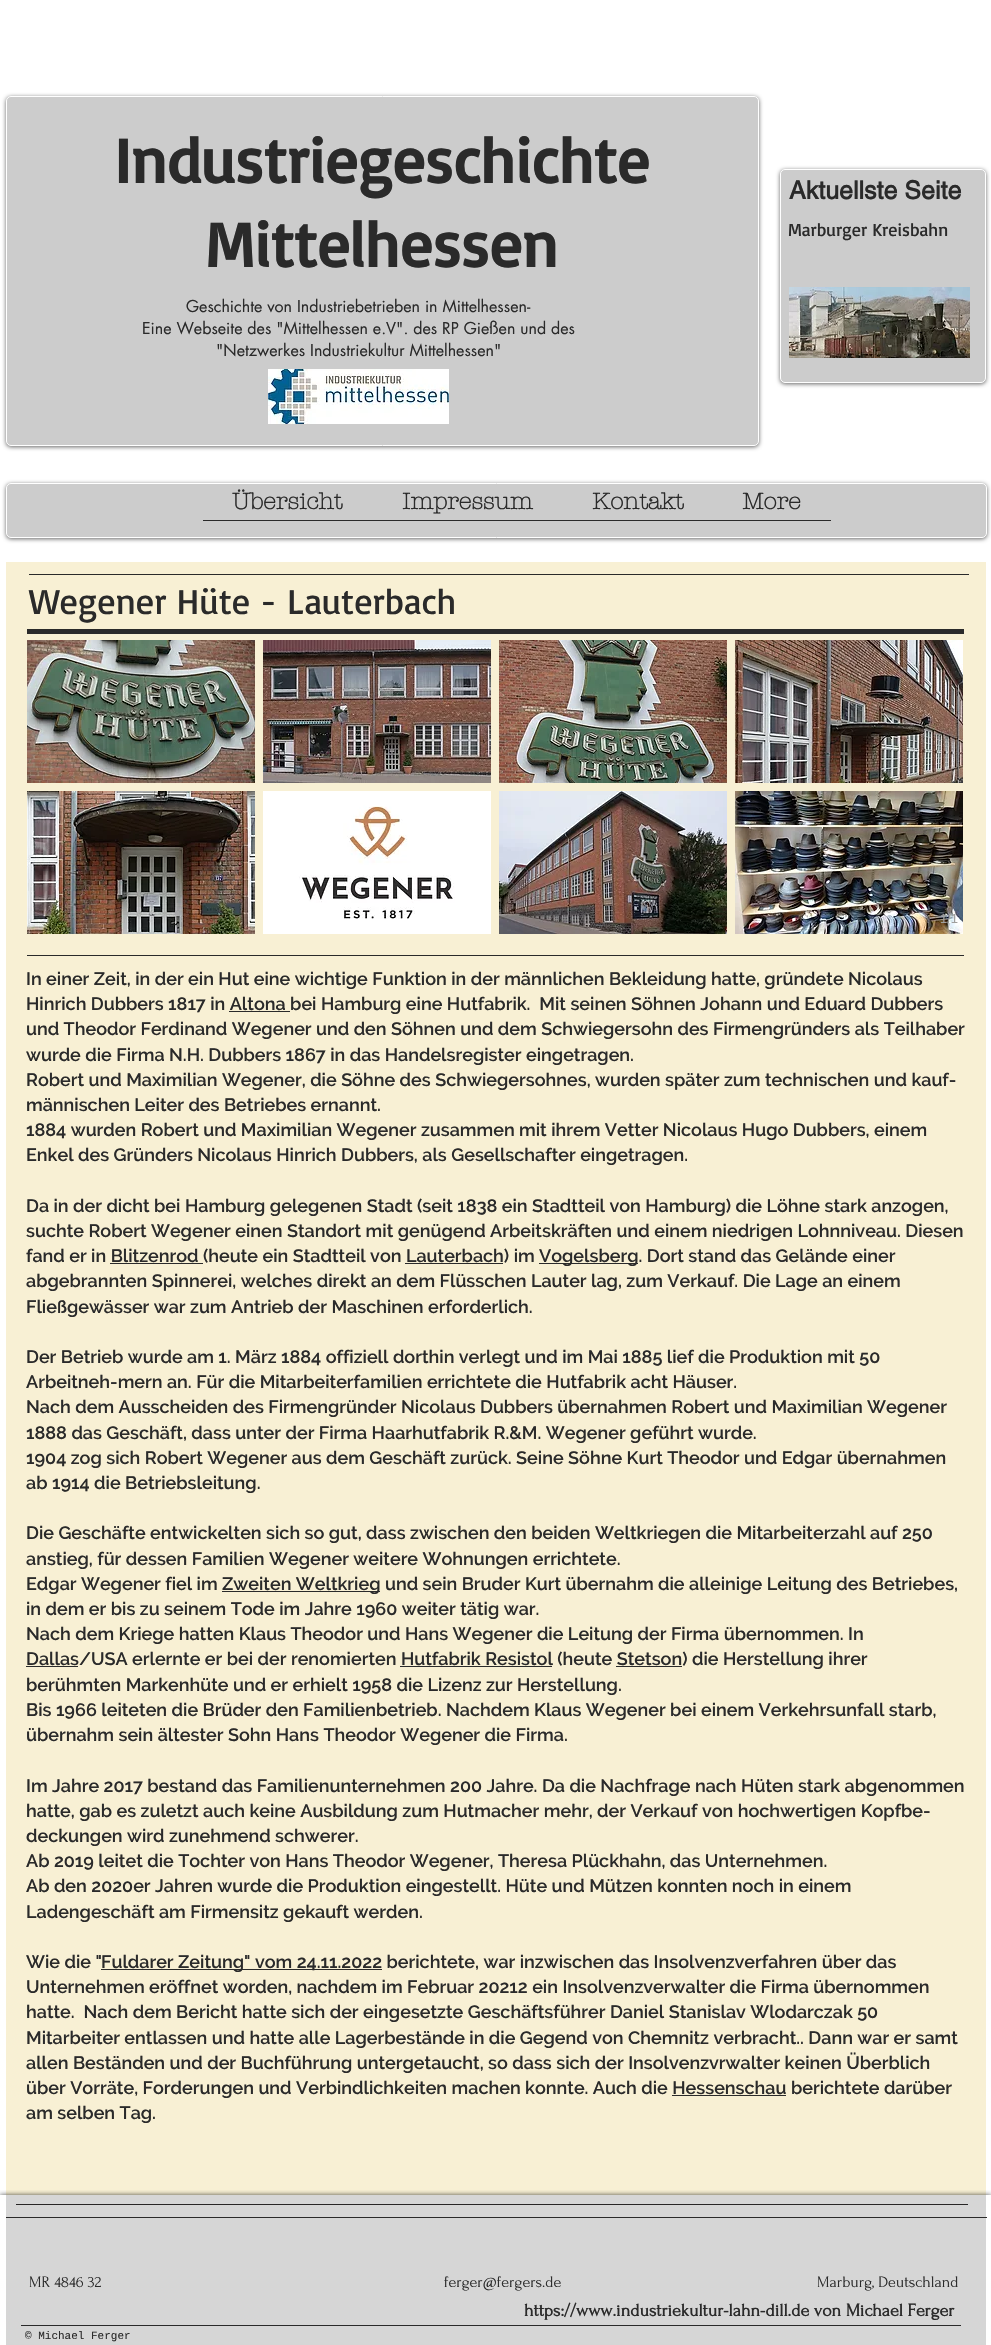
#include "include/core/SkBlurTypes.h"
#include "include/core/SkCanvas.h"
#include "include/core/SkData.h"
#include "include/core/SkFont.h"
#include "include/core/SkFontMgr.h"
#include "include/core/SkImage.h"
#include "include/core/SkMaskFilter.h"
#include "include/core/SkPaint.h"
#include "include/core/SkPathBuilder.h"
#include "include/core/SkTextBlob.h"
#include "include/effects/SkDashPathEffect.h"
#include "include/effects/SkGradientShader.h"
#include "include/utils/SkParsePath.h"

extern sk_sp<SkFontMgr> fontMgr;

static SkFont font(const char* family, int weight, float size, bool italic = false) {
    SkFontStyle style(weight, SkFontStyle::kNormal_Width,
        italic ? SkFontStyle::kItalic_Slant : SkFontStyle::kUpright_Slant);
    SkFont result(fontMgr->matchFamilyStyle(family, style), size);
    result.setSubpixel(true);
    return result;
}

static void drawLabel(SkCanvas* canvas, const char* s, float x, float y, const SkFont& font, SkColor color) {
    SkPaint ink(SkColor4f::FromColor(color));
    ink.setAntiAlias(true);
    canvas->drawString(s, x, y, font, ink);
}

static void fillRect(SkCanvas* canvas, float x, float y, float w, float h, SkColor color) {
    SkPaint ink(SkColor4f::FromColor(color));
    ink.setAntiAlias(true);
    canvas->drawRect(SkRect::MakeXYWH(x, y, w, h), ink);
}

static void drawPhoto(SkCanvas* canvas, const char* path, float x, float y, float w, float h) {
    auto image = SkImages::DeferredFromEncodedData(SkData::MakeFromFileName(path));
    canvas->drawImageRect(image, SkRect::MakeXYWH(x, y, w, h), SkSamplingOptions());
}

void draw(SkCanvas* canvas) {
    SkPaint paint;
    paint.setAntiAlias(true);
    canvas->clear(0xFFFFFFFF);
    paint.setColor(0x99000000);
    paint.setMaskFilter(SkMaskFilter::MakeBlur(kNormal_SkBlurStyle, 2));
    canvas->drawRoundRect(SkRect::MakeXYWH(6, 97, 753, 350), 5, 5, paint);
    paint.setMaskFilter(nullptr);
    paint.setColor(0xFFCCCCCC);
    canvas->drawRoundRect(SkRect::MakeXYWH(6.5f, 96.5f, 752, 349), 4.5f, 4.5f, paint);
    paint.setStroke(true);
    paint.setStrokeWidth(1);
    paint.setColor(0xFFFFFFFF);
    canvas->drawRoundRect(SkRect::MakeXYWH(6.5f, 96.5f, 752, 349), 4.5f, 4.5f, paint);
    SkFont font1 = font("Basic", 700, 64);
    drawLabel(canvas, "Industriegeschichte", 114, 183, font1, 0xFF2A2A2A);
    drawLabel(canvas, "Mittelhessen", 205, 267, font1, 0xFF2A2A2A);
    SkFont font2 = font("futura", 400, 16);
    drawLabel(canvas, "Geschichte von Industriebetrieben in Mittelhessen-", 186, 312, font2, 0xFF2A2A2A);
    drawLabel(canvas, "Eine Webseite des \"Mittelhessen e.V\". des RP Gießen und des", 142, 334, font2, 0xFF2A2A2A);
    drawLabel(canvas, "\"Netzwerkes Industriekultur Mittelhessen\"", 216, 356, font2, 0xFF2A2A2A);
    drawPhoto(canvas, "assets/img1.png", 268, 369, 181, 55);
    paint.setStroke(false);
    paint.setColor(0x99000000);
    paint.setMaskFilter(SkMaskFilter::MakeBlur(kNormal_SkBlurStyle, 2));
    canvas->drawRoundRect(SkRect::MakeXYWH(780, 170, 206, 214), 5, 5, paint);
    paint.setMaskFilter(nullptr);
    paint.setColor(0xFFCCCCCC);
    canvas->drawRoundRect(SkRect::MakeXYWH(780.5f, 169.5f, 205, 213), 4.5f, 4.5f, paint);
    paint.setStroke(true);
    paint.setColor(0xFFFFFFFF);
    canvas->drawRoundRect(SkRect::MakeXYWH(780.5f, 169.5f, 205, 213), 4.5f, 4.5f, paint);
    SkFont font3 = font("helvetica", 700, 25);
    drawLabel(canvas, "Aktuellste Seite", 789, 199, font3, 0xFF2A2A2A);
    SkFont font4 = font("Basic", 400, 18);
    drawLabel(canvas, "Marburger Kreisbahn", 788, 236, font4, 0xFF2A2A2A);
    drawPhoto(canvas, "assets/img2.png", 789, 287, 181, 71);
    paint.setStroke(false);
    paint.setColor(0x99000000);
    paint.setMaskFilter(SkMaskFilter::MakeBlur(kNormal_SkBlurStyle, 2));
    canvas->drawRoundRect(SkRect::MakeXYWH(6, 484, 981, 55), 5, 5, paint);
    paint.setMaskFilter(nullptr);
    paint.setColor(0xFFCCCCCC);
    canvas->drawRoundRect(SkRect::MakeXYWH(6.5f, 483.5f, 980, 54), 4.5f, 4.5f, paint);
    paint.setStroke(true);
    paint.setColor(0xFFFFFFFF);
    canvas->drawRoundRect(SkRect::MakeXYWH(6.5f, 483.5f, 980, 54), 4.5f, 4.5f, paint);
    SkFont font5 = font("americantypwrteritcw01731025", 700, 23);
    drawLabel(canvas, "Übersicht", 232, 509, font5, 0xFF2A2A2A);
    drawLabel(canvas, "Impressum", 402, 509, font5, 0xFF2A2A2A);
    drawLabel(canvas, "Kontakt", 592, 509, font5, 0xFF2A2A2A);
    drawLabel(canvas, "More", 742, 509, font5, 0xFF2A2A2A);
    fillRect(canvas, 203, 520, 628, 1, 0xFF2A2A2A);
    fillRect(canvas, 6, 562, 980, 1633, 0xFFF8F0D4);
    fillRect(canvas, 29, 574, 940, 1, 0xFF2A2A2A);
    SkFont font6 = font("Basic", 400, 36);
    drawLabel(canvas, "Wegener Hüte - Lauterbach", 29, 614, font6, 0xFF2A2A2A);
    fillRect(canvas, 27, 629, 937, 5, 0xFF2A2A2A);
    drawPhoto(canvas, "assets/img3.png", 27, 640, 228, 143);
    drawPhoto(canvas, "assets/img4.png", 263, 640, 228, 143);
    drawPhoto(canvas, "assets/img5.png", 499, 640, 228, 143);
    drawPhoto(canvas, "assets/img6.png", 735, 640, 228, 143);
    drawPhoto(canvas, "assets/img7.png", 27, 791, 228, 143);
    drawPhoto(canvas, "assets/img8.png", 263, 791, 228, 143);
    drawPhoto(canvas, "assets/img9.png", 499, 791, 228, 143);
    drawPhoto(canvas, "assets/img10.png", 735, 791, 228, 143);
    SkFont font7 = font("Liberation Sans", 400, 13);
    drawLabel(canvas, "1/1", 940, 923, font7, 0xFF9F9F9D);
    fillRect(canvas, 27, 955, 937, 1, 0xFF2A2A2A);
    SkFont font8 = font("Raleway", 600, 18);
    drawLabel(canvas, "In einer Zeit, in der ein Hut eine wichtige Funktion in der männlichen Bekleidung hatte, gründete Nicolaus", 26, 985, font8, 0xFF2A2A2A);
    drawLabel(canvas, "Hinrich Dubbers 1817 in Altona bei Hamburg eine Hutfabrik.  Mit seinen Söhnen Johann und Eduard Dubbers", 26, 1010, font8, 0xFF2A2A2A);
    fillRect(canvas, 229, 1011, 61, 1, 0xFF2A2A2A);
    drawLabel(canvas, "und Theodor Ferdinand Wegener und den Söhnen und dem Schwiegersohn des Firmengründers als Teilhaber", 26, 1035, font8, 0xFF2A2A2A);
    drawLabel(canvas, "wurde die Firma N.H. Dubbers 1867 in das Handelsregister eingetragen.", 26, 1061, font8, 0xFF2A2A2A);
    drawLabel(canvas, "Robert und Maximilian Wegener, die Söhne des Schwiegersohnes, wurden später zum technischen und kauf-", 26, 1086, font8, 0xFF2A2A2A);
    drawLabel(canvas, "männischen Leiter des Betriebes ernannt.", 26, 1111, font8, 0xFF2A2A2A);
    drawLabel(canvas, "1884 wurden Robert und Maximilian Wegener zusammen mit ihrem Vetter Nicolaus Hugo Dubbers, einem", 26, 1136, font8, 0xFF2A2A2A);
    drawLabel(canvas, "Enkel des Gründers Nicolaus Hinrich Dubbers, als Gesellschafter eingetragen.", 26, 1161, font8, 0xFF2A2A2A);
    drawLabel(canvas, "Da in der dicht bei Hamburg gelegenen Stadt (seit 1838 ein Stadtteil von Hamburg) die Löhne stark anzogen,", 26, 1212, font8, 0xFF2A2A2A);
    drawLabel(canvas, "suchte Robert Wegener einen Standort mit genügend Arbeitskräften und einem niedrigen Lohnniveau. Diesen", 26, 1237, font8, 0xFF2A2A2A);
    drawLabel(canvas, "fand er in Blitzenrod (heute ein Stadtteil von Lauterbach) im", 26, 1262, font8, 0xFF2A2A2A);
    fillRect(canvas, 110, 1263, 93, 1, 0xFF2A2A2A);
    fillRect(canvas, 405, 1263, 98, 1, 0xFF2A2A2A);
    fillRect(canvas, 539, 1263, 99, 1, 0xFF2A2A2A);
    drawLabel(canvas, "Vogelsberg. Dort stand das Gelände einer", 539, 1262, font8, 0xFF2A2A2A);
    drawLabel(canvas, "abgebrannten Spinnerei, welches direkt an dem Flüsschen Lauter lag, zum Verkauf. Die Lage an einem", 26, 1287, font8, 0xFF2A2A2A);
    drawLabel(canvas, "Fließgewässer war zum Antrieb der Maschinen erforderlich.", 26, 1313, font8, 0xFF2A2A2A);
    drawLabel(canvas, "Der Betrieb wurde am 1. März 1884 offiziell dorthin verlegt und im Mai 1885 lief die Produktion mit 50", 26, 1363, font8, 0xFF2A2A2A);
    drawLabel(canvas, "Arbeitneh-mern an. Für die Mitarbeiterfamilien errichtete die Hutfabrik acht Häuser.", 26, 1388, font8, 0xFF2A2A2A);
    drawLabel(canvas, "Nach dem Ausscheiden des Firmengründer Nicolaus Dubbers übernahmen Robert und Maximilian Wegener", 26, 1413, font8, 0xFF2A2A2A);
    drawLabel(canvas, "1888 das Geschäft, dass unter der Firma Haarhutfabrik R.&M. Wegener geführt wurde.", 26, 1439, font8, 0xFF2A2A2A);
    drawLabel(canvas, "1904 zog sich Robert Wegener aus dem Geschäft zurück. Seine Söhne Kurt Theodor und Edgar übernahmen", 26, 1464, font8, 0xFF2A2A2A);
    drawLabel(canvas, "ab 1914 die Betriebsleitung.", 26, 1489, font8, 0xFF2A2A2A);
    drawLabel(canvas, "Die Geschäfte entwickelten sich so gut, dass zwischen den beiden Weltkriegen die Mitarbeiterzahl auf 250", 26, 1539, font8, 0xFF2A2A2A);
    drawLabel(canvas, "anstieg, für dessen Familien Wegener weitere Wohnungen errichtete.", 26, 1565, font8, 0xFF2A2A2A);
    drawLabel(canvas, "Edgar Wegener fiel im", 26, 1590, font8, 0xFF2A2A2A);
    fillRect(canvas, 222, 1591, 158, 1, 0xFF2A2A2A);
    drawLabel(canvas, "Zweiten Weltkrieg und sein Bruder Kurt übernahm die alleinige Leitung des Betriebes,", 222, 1590, font8, 0xFF2A2A2A);
    drawLabel(canvas, "in dem er bis zu seinem Tode im Jahre 1960 weiter tätig war.", 26, 1615, font8, 0xFF2A2A2A);
    drawLabel(canvas, "Nach dem Kriege hatten Klaus Theodor und Hans Wegener die Leitung der Firma übernommen. In", 26, 1640, font8, 0xFF2A2A2A);
    fillRect(canvas, 26, 1666, 52, 1, 0xFF2A2A2A);
    drawLabel(canvas, "Dallas/USA erlernte er bei der renomierten Hutfabrik Resistol (heute Stetson) die Herstellung ihrer", 26, 1665, font8, 0xFF2A2A2A);
    fillRect(canvas, 400, 1666, 152, 1, 0xFF2A2A2A);
    fillRect(canvas, 616, 1666, 66, 1, 0xFF2A2A2A);
    drawLabel(canvas, "berühmten Markenhüte und er erhielt 1958 die Lizenz zur Herstellung.", 26, 1691, font8, 0xFF2A2A2A);
    drawLabel(canvas, "Bis 1966 leiteten die Brüder den Familienbetrieb. Nachdem Klaus Wegener bei einem Verkehrsunfall starb,", 26, 1716, font8, 0xFF2A2A2A);
    drawLabel(canvas, "übernahm sein ältester Sohn Hans Theodor Wegener die Firma.", 26, 1741, font8, 0xFF2A2A2A);
    drawLabel(canvas, "Im Jahre 2017 bestand das Familienunternehmen 200 Jahre. Da die Nachfrage nach Hüten stark abgenommen", 26, 1792, font8, 0xFF2A2A2A);
    drawLabel(canvas, "hatte, gab es zuletzt auch keine Ausbildung zum Hutmacher mehr, der Verkauf von hochwertigen Kopfbe-", 26, 1817, font8, 0xFF2A2A2A);
    drawLabel(canvas, "deckungen wird zunehmend schwerer.", 26, 1842, font8, 0xFF2A2A2A);
    drawLabel(canvas, "Ab 2019 leitet die Tochter von Hans Theodor Wegener, Theresa Plückhahn, das Unternehmen.", 26, 1867, font8, 0xFF2A2A2A);
    drawLabel(canvas, "Ab den 2020er Jahren wurde die Produktion eingestellt. Hüte und Mützen konnten noch in einem", 26, 1892, font8, 0xFF2A2A2A);
    drawLabel(canvas, "Ladengeschäft am Firmensitz gekauft werden.", 26, 1918, font8, 0xFF2A2A2A);
    drawLabel(canvas, "Wie die \"", 26, 1968, font8, 0xFF2A2A2A);
    fillRect(canvas, 101, 1969, 281, 1, 0xFF2A2A2A);
    drawLabel(canvas, "Fuldarer Zeitung\" vom 24.11.2022 berichtete, war inzwischen das Insolvenzverfahren über das", 101, 1968, font8, 0xFF2A2A2A);
    drawLabel(canvas, "Unternehmen eröffnet worden, nachdem im Februar 20212 ein Insolvenzverwalter die Firma übernommen", 26, 1993, font8, 0xFF2A2A2A);
    drawLabel(canvas, "hatte.  Nach dem Bericht hatte sich der eingesetzte Geschäftsführer Daniel Stanislav Wlodarczak 50", 26, 2018, font8, 0xFF2A2A2A);
    drawLabel(canvas, "Mitarbeiter entlassen und hatte alle Lagerbestände in die Gegend von Chemnitz verbracht.. Dann war er samt", 26, 2044, font8, 0xFF2A2A2A);
    drawLabel(canvas, "allen Beständen und der Buchführung untergetaucht, so dass sich der Insolvenzvrwalter keinen Überblich", 26, 2069, font8, 0xFF2A2A2A);
    drawLabel(canvas, "über Vorräte, Forderungen und Verbindlichkeiten machen konnte. Auch die Hessenschau berichtete darüber", 26, 2094, font8, 0xFF2A2A2A);
    fillRect(canvas, 672, 2095, 114, 1, 0xFF2A2A2A);
    drawLabel(canvas, "am selben Tag.", 26, 2119, font8, 0xFF2A2A2A);
    canvas->save();
    canvas->clipRect(SkRect::MakeXYWH(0, 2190, 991, 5));
    paint.setStroke(false);
    paint.setColor(0xB3000000);
    paint.setMaskFilter(SkMaskFilter::MakeBlur(kNormal_SkBlurStyle, 2.5f));
    canvas->drawRect(SkRect::MakeXYWH(0, 2195, 991, 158), paint);
    paint.setMaskFilter(nullptr);
    canvas->restore();
    fillRect(canvas, 6, 2195, 980, 150, 0xFFD6D6D6);
    fillRect(canvas, 16, 2204, 952, 1, 0xFF282626);
    fillRect(canvas, 6, 2217, 981, 1, 0xFF2A2A2A);
    SkFont font9 = font("Forum", 400, 16);
    drawLabel(canvas, "MR 4846 32", 29, 2287, font9, 0xFF2A2A2A);
    drawLabel(canvas, "ferger@fergers.de", 444, 2287, font9, 0xFF2A2A2A);
    drawLabel(canvas, "Marburg, Deutschland", 817, 2287, font9, 0xFF2A2A2A);
    SkFont font10 = font("Forum", 700, 18);
    drawLabel(canvas, "https://www.industriekultur-lahn-dill.de von Michael Ferger", 524, 2316, font10, 0xFF2A2A2A);
    fillRect(canvas, 21, 2325, 940, 1, 0xFF2A2A2A);
    SkFont font11 = font("Liberation Mono", 400, 11);
    drawLabel(canvas, "© Michael Ferger", 25, 2339, font11, 0xFF2A2A2A);
}
